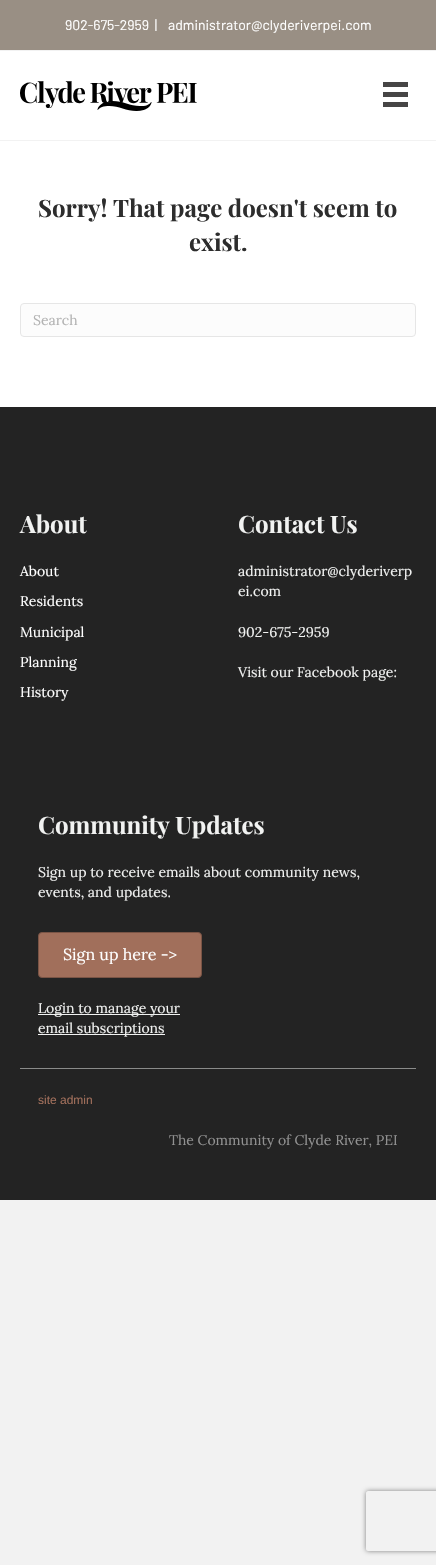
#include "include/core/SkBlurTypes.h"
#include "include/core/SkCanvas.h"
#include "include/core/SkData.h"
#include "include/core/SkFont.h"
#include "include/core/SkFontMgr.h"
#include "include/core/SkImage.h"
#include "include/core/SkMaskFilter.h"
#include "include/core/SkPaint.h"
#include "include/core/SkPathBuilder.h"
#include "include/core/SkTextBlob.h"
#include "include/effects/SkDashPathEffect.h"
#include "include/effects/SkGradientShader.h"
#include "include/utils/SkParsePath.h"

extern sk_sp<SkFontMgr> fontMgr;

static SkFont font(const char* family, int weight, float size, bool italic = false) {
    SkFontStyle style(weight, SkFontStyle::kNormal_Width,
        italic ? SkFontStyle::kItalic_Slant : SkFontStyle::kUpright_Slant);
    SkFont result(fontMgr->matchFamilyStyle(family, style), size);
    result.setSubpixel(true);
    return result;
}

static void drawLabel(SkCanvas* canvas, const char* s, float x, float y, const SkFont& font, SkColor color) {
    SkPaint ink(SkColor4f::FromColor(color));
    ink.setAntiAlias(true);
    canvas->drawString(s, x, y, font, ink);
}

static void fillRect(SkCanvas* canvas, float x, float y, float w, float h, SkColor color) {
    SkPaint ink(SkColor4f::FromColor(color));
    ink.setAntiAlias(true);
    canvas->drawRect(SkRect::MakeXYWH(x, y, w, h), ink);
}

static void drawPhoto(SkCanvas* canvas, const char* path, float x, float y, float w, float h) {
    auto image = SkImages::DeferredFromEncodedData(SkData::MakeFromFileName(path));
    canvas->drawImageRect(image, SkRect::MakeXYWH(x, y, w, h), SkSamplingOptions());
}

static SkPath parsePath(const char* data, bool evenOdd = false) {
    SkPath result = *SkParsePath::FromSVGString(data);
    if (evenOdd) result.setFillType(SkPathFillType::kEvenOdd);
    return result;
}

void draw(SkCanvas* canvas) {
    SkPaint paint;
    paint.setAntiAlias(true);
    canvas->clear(0xFFF2F2F2);
    fillRect(canvas, 0, 0, 436, 50, 0xFF998F84);
    SkFont font1 = font("Barlow", 400, 14);
    drawLabel(canvas, "902-675-2959  |", 65, 30, font1, 0xFFFFFFFF);
    drawLabel(canvas, "administrator@clyderiverpei.com", 168, 30, font1, 0xFFFFFFFF);
    fillRect(canvas, 0, 51, 436, 89, 0xFFFFFFFF);
    drawPhoto(canvas, "assets/img1.png", 20, 81, 177, 30);
    fillRect(canvas, 383, 82, 25, 5, 0xFF464545);
    fillRect(canvas, 383, 92, 25, 5, 0xFF464545);
    fillRect(canvas, 383, 102, 25, 5, 0xFF464545);
    fillRect(canvas, 0, 141, 436, 266, 0xFFFFFFFF);
    SkFont font2 = font("Playfair Display", 700, 24);
    drawLabel(canvas, "Sorry! That page doesn't seem to", 38, 217, font2, 0xFF2D2D2D);
    drawLabel(canvas, "exist.", 189, 251, font2, 0xFF2D2D2D);
    paint.setColor(0xFFFCFCFC);
    canvas->drawRoundRect(SkRect::MakeXYWH(20.5f, 303.5f, 395, 33), 3.5f, 3.5f, paint);
    paint.setStroke(true);
    paint.setStrokeWidth(1);
    paint.setColor(0xFFE6E6E6);
    canvas->drawRoundRect(SkRect::MakeXYWH(20.5f, 303.5f, 395, 33), 3.5f, 3.5f, paint);
    SkFont font3 = font("Lora", 400, 14);
    drawLabel(canvas, "Search", 33, 325, font3, 0xFFB3B3B3);
    fillRect(canvas, 0, 407, 436, 793, 0xFF232323);
    drawLabel(canvas, "About", 20, 533, font2, 0xFFF1F2F1);
    drawLabel(canvas, "About", 20, 576, font3, 0xFFFFFFFF);
    drawLabel(canvas, "Residents", 20, 606, font3, 0xFFFFFFFF);
    drawLabel(canvas, "Municipal", 20, 637, font3, 0xFFFFFFFF);
    drawLabel(canvas, "Planning", 20, 667, font3, 0xFFFFFFFF);
    drawLabel(canvas, "History", 20, 697, font3, 0xFFFFFFFF);
    drawLabel(canvas, "Contact Us", 238, 533, font2, 0xFFF1F2F1);
    drawLabel(canvas, "administrator@clyderiverp", 238, 576, font3, 0xFFF1F2F1);
    drawLabel(canvas, "ei.com", 238, 596, font3, 0xFFF1F2F1);
    drawLabel(canvas, "902-675-2959", 238, 637, font3, 0xFFF1F2F1);
    drawLabel(canvas, "Visit our Facebook page:", 238, 677, font3, 0xFFF1F2F1);
    drawLabel(canvas, "Community Updates", 38, 834, font2, 0xFFF1F2F1);
    drawLabel(canvas, "Sign up to receive emails about community news,", 38, 877, font3, 0xFFF1F2F1);
    drawLabel(canvas, "events, and updates.", 38, 897, font3, 0xFFF1F2F1);
    paint.setStroke(false);
    paint.setColor(0xFFA16F5B);
    canvas->drawRoundRect(SkRect::MakeXYWH(38.5f, 932.5f, 163, 45), 3.5f, 3.5f, paint);
    paint.setStroke(true);
    paint.setColor(0xFF7A5445);
    canvas->drawRoundRect(SkRect::MakeXYWH(38.5f, 932.5f, 163, 45), 3.5f, 3.5f, paint);
    SkFont font4 = font("Lora", 400, 16);
    drawLabel(canvas, "Sign up here ->", 63, 960, font4, 0xFFFFFFFF);
    fillRect(canvas, 38, 1014, 142, 1, 0xFFF1F2F1);
    drawLabel(canvas, "Login to manage your", 38, 1013, font3, 0xFFF1F2F1);
    fillRect(canvas, 38, 1034, 127, 1, 0xFFF1F2F1);
    drawLabel(canvas, "email subscriptions", 38, 1033, font3, 0xFFF1F2F1);
    fillRect(canvas, 20, 1068, 396, 1, 0xFF8A8B8A);
    SkFont font5 = font("Liberation Sans", 400, 12);
    drawLabel(canvas, "site admin", 38, 1104, font5, 0xFFA16F5B);
    drawLabel(canvas, "The Community of Clyde River, PEI", 169, 1145, font3, 0xFF919191);
    canvas->save();
    canvas->clipPath(parsePath("M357 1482H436V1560H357ZM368 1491H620C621 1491 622 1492 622 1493V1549C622 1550 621 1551 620 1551H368C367 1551 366 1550 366 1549V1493C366 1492 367 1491 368 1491Z", true), true);
    paint.setStroke(false);
    paint.setColor(0xFF808080);
    paint.setMaskFilter(SkMaskFilter::MakeBlur(kNormal_SkBlurStyle, 2.5f));
    canvas->drawRoundRect(SkRect::MakeXYWH(366, 1491, 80, 60), 2, 2, paint);
    paint.setMaskFilter(nullptr);
    canvas->restore();
}
